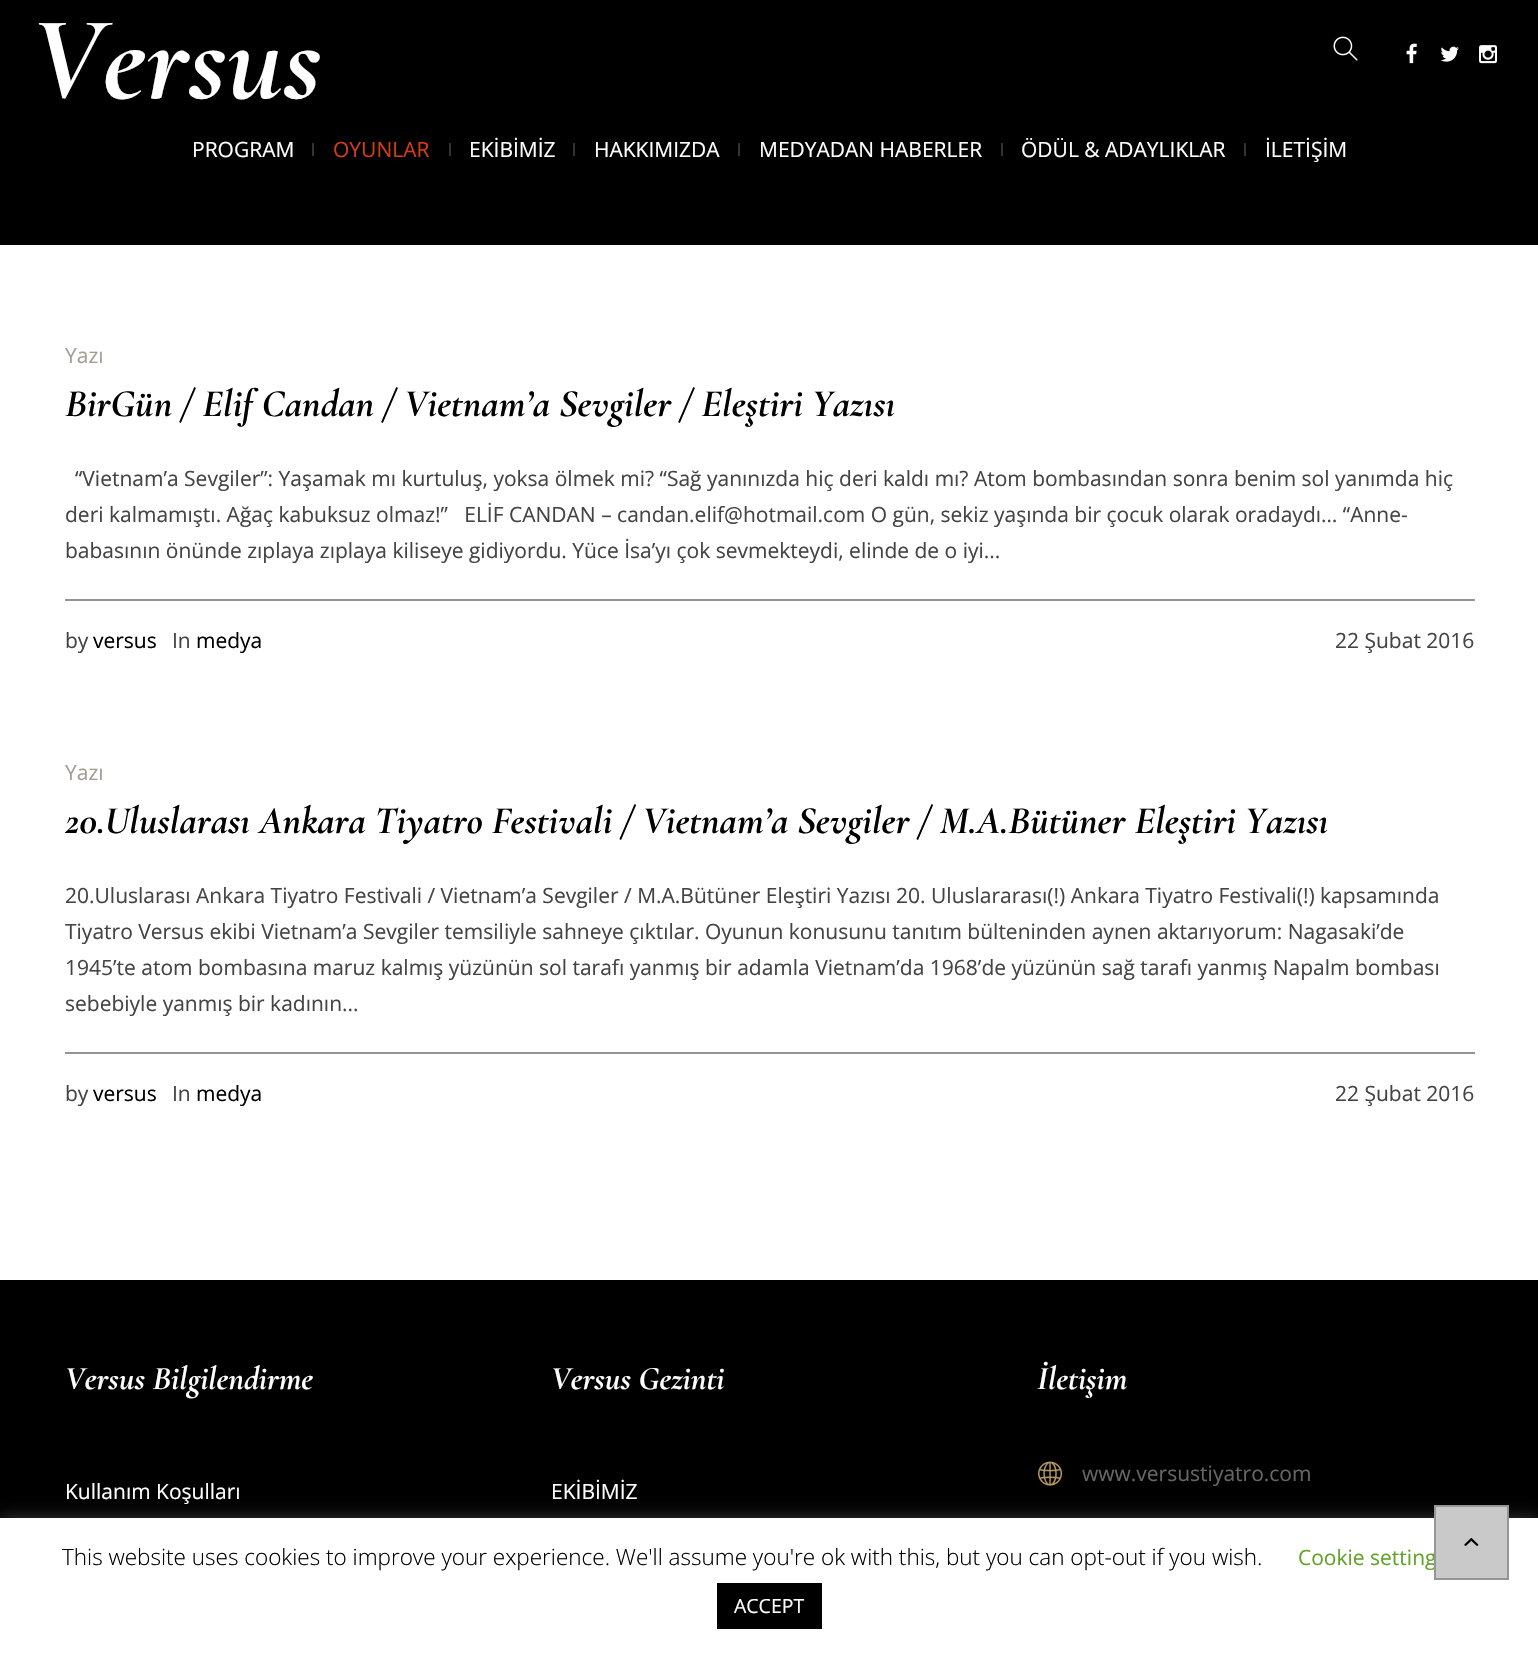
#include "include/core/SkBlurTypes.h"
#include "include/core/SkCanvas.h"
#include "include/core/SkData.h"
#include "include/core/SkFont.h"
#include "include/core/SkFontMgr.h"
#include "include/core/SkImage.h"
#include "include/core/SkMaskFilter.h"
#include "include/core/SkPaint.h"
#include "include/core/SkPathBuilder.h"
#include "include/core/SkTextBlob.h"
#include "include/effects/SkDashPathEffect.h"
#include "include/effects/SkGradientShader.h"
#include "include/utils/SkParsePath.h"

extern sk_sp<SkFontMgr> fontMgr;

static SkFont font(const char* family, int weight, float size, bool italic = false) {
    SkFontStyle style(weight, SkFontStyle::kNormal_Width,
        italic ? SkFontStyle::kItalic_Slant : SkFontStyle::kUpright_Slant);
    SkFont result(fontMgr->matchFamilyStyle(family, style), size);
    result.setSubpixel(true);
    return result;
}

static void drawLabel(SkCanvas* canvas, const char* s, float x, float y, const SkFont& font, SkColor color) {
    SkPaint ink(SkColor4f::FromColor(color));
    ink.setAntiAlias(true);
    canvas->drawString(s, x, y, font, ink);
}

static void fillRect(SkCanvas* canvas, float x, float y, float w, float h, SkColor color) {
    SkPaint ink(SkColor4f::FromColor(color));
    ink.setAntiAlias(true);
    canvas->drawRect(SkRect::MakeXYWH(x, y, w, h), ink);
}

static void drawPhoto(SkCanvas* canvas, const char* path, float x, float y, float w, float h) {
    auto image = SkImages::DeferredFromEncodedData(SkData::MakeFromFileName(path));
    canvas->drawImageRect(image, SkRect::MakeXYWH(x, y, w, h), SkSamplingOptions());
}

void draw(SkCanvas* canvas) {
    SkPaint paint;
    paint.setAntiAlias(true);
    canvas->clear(0xFFFFFFFF);
    fillRect(canvas, 0, 0, 1538, 245, 0xFF000000);
    SkFont font1 = font("Cormorant Garamond", 300, 120, true);
    drawLabel(canvas, "Versus", 31, 98, font1, 0xFFFFFFFF);
    drawPhoto(canvas, "assets/img1.png", 1333, 36, 25, 25);
    drawPhoto(canvas, "assets/img2.png", 1406, 43, 11, 21);
    drawPhoto(canvas, "assets/img3.png", 1440, 46, 19, 16);
    drawPhoto(canvas, "assets/img4.png", 1479, 45, 18, 19);
    SkFont font2 = font("Open Sans", 400, 21);
    drawLabel(canvas, "PROGRAM", 192, 157, font2, 0xFFFFFFFF);
    fillRect(canvas, 312, 143, 2, 13, 0xFF333333);
    drawLabel(canvas, "OYUNLAR", 333, 157, font2, 0xFFD43C18);
    fillRect(canvas, 449, 143, 2, 13, 0xFF333333);
    drawLabel(canvas, "EKİBİMİZ", 469, 157, font2, 0xFFFFFFFF);
    fillRect(canvas, 573, 143, 2, 13, 0xFF333333);
    drawLabel(canvas, "HAKKIMIZDA", 594, 157, font2, 0xFFFFFFFF);
    fillRect(canvas, 738, 143, 2, 13, 0xFF333333);
    drawLabel(canvas, "MEDYADAN HABERLER", 759, 157, font2, 0xFFFFFFFF);
    fillRect(canvas, 1001, 143, 2, 13, 0xFF333333);
    drawLabel(canvas, "ÖDÜL & ADAYLIKLAR", 1021, 157, font2, 0xFFFFFFFF);
    fillRect(canvas, 1244, 143, 2, 13, 0xFF333333);
    drawLabel(canvas, "İLETİŞİM", 1265, 157, font2, 0xFFFFFFFF);
    drawLabel(canvas, "Yazı", 65, 363, font2, 0xFFA49F95);
    SkFont font3 = font("Cormorant Garamond", 300, 39, true);
    drawLabel(canvas, "BirGün / Elif Candan / Vietnam’a Sevgiler / Eleştiri Yazısı", 65, 416, font3, 0xFF000000);
    drawLabel(canvas, "“Vietnam’a Sevgiler”: Yaşamak mı kurtuluş, yoksa ölmek mi? “Sağ yanınızda hiç deri kaldı mı? Atom bombasından sonra benim sol yanımda hiç", 75, 486, font2, 0xFF444444);
    drawLabel(canvas, "deri kalmamıştı. Ağaç kabuksuz olmaz!”   ELİF CANDAN – candan.elif@hotmail.com O gün, sekiz yaşında bir çocuk olarak oradaydı… “Anne-", 65, 522, font2, 0xFF444444);
    drawLabel(canvas, "babasının önünde zıplaya zıplaya kiliseye gidiyordu. Yüce İsa’yı çok sevmekteydi, elinde de o iyi...", 65, 558, font2, 0xFF444444);
    fillRect(canvas, 65, 599, 1410, 2, 0xFF959595);
    drawLabel(canvas, "by", 65, 648, font2, 0xFF444444);
    drawLabel(canvas, "versus", 93, 648, font2, 0xFF000000);
    drawLabel(canvas, "In", 172, 648, font2, 0xFF444444);
    drawLabel(canvas, "medya", 196, 648, font2, 0xFF000000);
    drawLabel(canvas, "22 Şubat 2016", 1335, 648, font2, 0xFF444444);
    drawLabel(canvas, "Yazı", 65, 780, font2, 0xFFA49F95);
    drawLabel(canvas, "20.Uluslarası Ankara Tiyatro Festivali / Vietnam’a Sevgiler / M.A.Bütüner Eleştiri Yazısı", 65, 833, font3, 0xFF000000);
    drawLabel(canvas, "20.Uluslarası Ankara Tiyatro Festivali / Vietnam’a Sevgiler / M.A.Bütüner Eleştiri Yazısı 20. Uluslararası(!) Ankara Tiyatro Festivali(!) kapsamında", 65, 903, font2, 0xFF444444);
    drawLabel(canvas, "Tiyatro Versus ekibi Vietnam’a Sevgiler temsiliyle sahneye çıktılar. Oyunun konusunu tanıtım bülteninden aynen aktarıyorum: Nagasaki’de", 65, 939, font2, 0xFF444444);
    drawLabel(canvas, "1945’te atom bombasına maruz kalmış yüzünün sol tarafı yanmış bir adamla Vietnam’da 1968’de yüzünün sağ tarafı yanmış Napalm bombası", 65, 975, font2, 0xFF444444);
    drawLabel(canvas, "sebebiyle yanmış bir kadının...", 65, 1011, font2, 0xFF444444);
    fillRect(canvas, 65, 1052, 1410, 2, 0xFF959595);
    drawLabel(canvas, "by", 65, 1101, font2, 0xFF444444);
    drawLabel(canvas, "versus", 93, 1101, font2, 0xFF000000);
    drawLabel(canvas, "In", 172, 1101, font2, 0xFF444444);
    drawLabel(canvas, "medya", 196, 1101, font2, 0xFF000000);
    drawLabel(canvas, "22 Şubat 2016", 1335, 1101, font2, 0xFF444444);
    fillRect(canvas, 0, 1280, 1538, 238, 0xFF000000);
    SkFont font4 = font("Cormorant Garamond", 300, 33, true);
    drawLabel(canvas, "Versus Bilgilendirme", 65, 1389, font4, 0xFFFFFFFF);
    drawLabel(canvas, "Kullanım Koşulları", 65, 1499, font2, 0xFFFFFFFF);
    drawLabel(canvas, "Versus Gezinti", 551, 1389, font4, 0xFFFFFFFF);
    drawLabel(canvas, "EKİBİMİZ", 551, 1499, font2, 0xFFFFFFFF);
    drawLabel(canvas, "İletişim", 1037, 1389, font4, 0xFFFFFFFF);
    drawPhoto(canvas, "assets/img5.png", 1038, 1461, 25, 25);
    drawLabel(canvas, "www.versustiyatro.com", 1082, 1481, font2, 0xFF666666);
    paint.setColor(0x4DACABAB);
    paint.setMaskFilter(SkMaskFilter::MakeBlur(kNormal_SkBlurStyle, 7.5f));
    canvas->drawRect(SkRect::MakeXYWH(0, 1517, 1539, 136), paint);
    paint.setMaskFilter(nullptr);
    fillRect(canvas, 0, 1518, 1538, 136, 0xFFFFFFFF);
    drawLabel(canvas, "Cookie setting", 1298, 1565, font2, 0xFF62A329);
    paint.setColor(0xFFC9C9C9);
    canvas->drawRect(SkRect::MakeXYWH(1435, 1506, 73, 73), paint);
    paint.setStroke(true);
    paint.setStrokeWidth(2);
    paint.setColor(0xFF959595);
    canvas->drawRect(SkRect::MakeXYWH(1435, 1506, 73, 73), paint);
    drawPhoto(canvas, "assets/img6.png", 1464, 1538, 15, 8);
    SkFont font5 = font("Open Sans", 300, 22.5f);
    drawLabel(canvas, "This website uses cookies to improve your experience. We'll assume you're ok with this, but you can opt-out if you wish.", 62, 1565, font5, 0xFF000000);
    fillRect(canvas, 717, 1583, 105, 46, 0xFF000000);
    SkFont font6 = font("Open Sans", 400, 19.5f);
    drawLabel(canvas, "ACCEPT", 734, 1613, font6, 0xFFFFFFFF);
}
